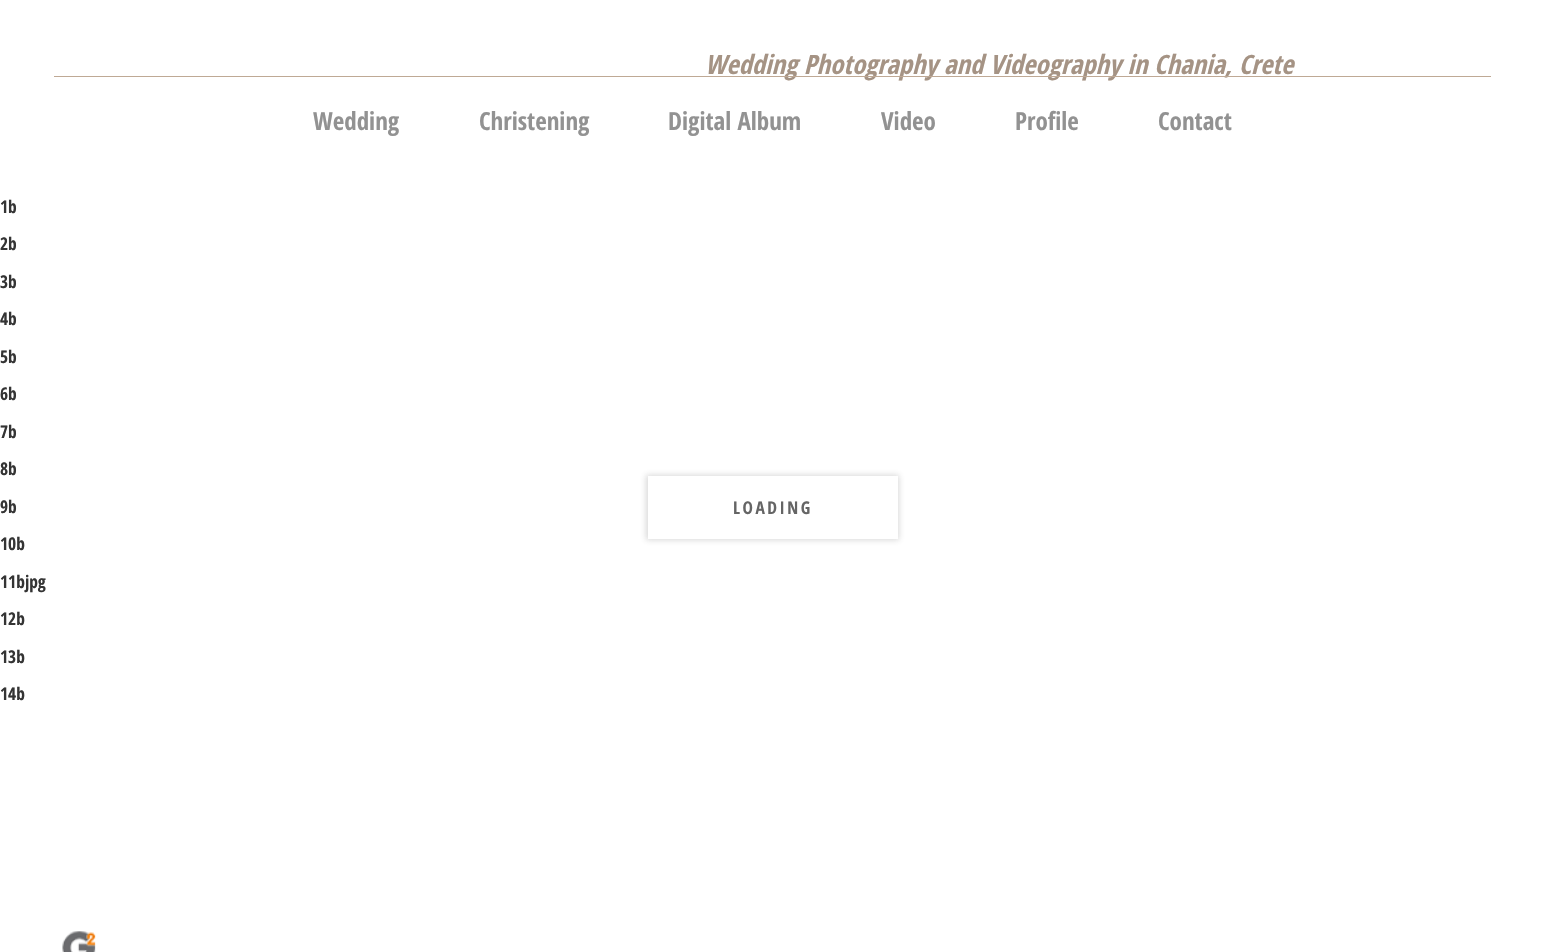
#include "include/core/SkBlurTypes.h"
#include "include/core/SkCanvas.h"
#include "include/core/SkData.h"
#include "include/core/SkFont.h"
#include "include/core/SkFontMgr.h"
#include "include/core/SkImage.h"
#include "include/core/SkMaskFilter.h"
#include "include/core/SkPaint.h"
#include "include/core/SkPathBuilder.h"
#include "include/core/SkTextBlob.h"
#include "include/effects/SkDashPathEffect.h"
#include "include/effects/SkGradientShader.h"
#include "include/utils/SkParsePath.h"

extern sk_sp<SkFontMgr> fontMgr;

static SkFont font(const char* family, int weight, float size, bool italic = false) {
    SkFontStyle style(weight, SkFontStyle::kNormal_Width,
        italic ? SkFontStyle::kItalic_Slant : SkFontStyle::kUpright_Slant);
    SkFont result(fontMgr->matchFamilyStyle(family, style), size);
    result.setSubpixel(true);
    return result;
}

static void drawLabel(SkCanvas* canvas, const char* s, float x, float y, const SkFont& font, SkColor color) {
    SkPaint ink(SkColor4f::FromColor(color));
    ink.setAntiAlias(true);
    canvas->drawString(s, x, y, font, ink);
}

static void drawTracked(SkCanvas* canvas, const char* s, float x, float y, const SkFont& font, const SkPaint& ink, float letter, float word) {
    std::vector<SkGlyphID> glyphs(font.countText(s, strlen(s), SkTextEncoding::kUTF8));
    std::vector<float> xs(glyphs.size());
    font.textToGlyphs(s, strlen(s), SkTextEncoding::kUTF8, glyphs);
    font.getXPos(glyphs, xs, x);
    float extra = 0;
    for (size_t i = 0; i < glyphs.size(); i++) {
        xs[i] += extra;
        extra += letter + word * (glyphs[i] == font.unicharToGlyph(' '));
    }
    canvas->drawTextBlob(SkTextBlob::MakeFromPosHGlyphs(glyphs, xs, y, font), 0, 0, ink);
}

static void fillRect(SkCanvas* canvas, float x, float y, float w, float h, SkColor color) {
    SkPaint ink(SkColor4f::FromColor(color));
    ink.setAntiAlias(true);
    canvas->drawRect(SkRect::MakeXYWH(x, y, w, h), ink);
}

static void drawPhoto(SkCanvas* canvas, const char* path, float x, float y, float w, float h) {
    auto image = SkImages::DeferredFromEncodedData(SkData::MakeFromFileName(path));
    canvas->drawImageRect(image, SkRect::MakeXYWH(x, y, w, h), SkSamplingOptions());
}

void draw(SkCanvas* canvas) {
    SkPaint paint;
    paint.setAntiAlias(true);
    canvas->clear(0xFFFFFFFF);
    SkFont font1 = font("Open Sans Condensed", 700, 17.5f);
    drawLabel(canvas, "1b", 0, 213, font1, 0xFF343434);
    drawLabel(canvas, "2b", 0, 250, font1, 0xFF343434);
    drawLabel(canvas, "3b", 0, 288, font1, 0xFF343434);
    drawLabel(canvas, "4b", 0, 325, font1, 0xFF343434);
    drawLabel(canvas, "5b", 0, 363, font1, 0xFF343434);
    drawLabel(canvas, "6b", 0, 400, font1, 0xFF343434);
    drawLabel(canvas, "7b", 0, 438, font1, 0xFF343434);
    drawLabel(canvas, "8b", 0, 475, font1, 0xFF343434);
    drawLabel(canvas, "9b", 0, 513, font1, 0xFF343434);
    drawLabel(canvas, "10b", 0, 550, font1, 0xFF343434);
    drawLabel(canvas, "11bjpg", 0, 588, font1, 0xFF343434);
    drawLabel(canvas, "12b", 0, 625, font1, 0xFF343434);
    drawLabel(canvas, "13b", 0, 663, font1, 0xFF343434);
    drawLabel(canvas, "14b", 0, 700, font1, 0xFF343434);
    SkFont font2 = font("Open Sans Condensed", 700, 26.7f, true);
    drawLabel(canvas, "Wedding Photography and Videography in Chania, Crete", 705, 74, font2, 0xFFA59384);
    fillRect(canvas, 54, 76, 1437, 1, 0xFFBFA995);
    SkFont font3 = font("Open Sans Condensed", 700, 25);
    drawLabel(canvas, "Wedding", 313, 130, font3, 0xFF929292);
    drawLabel(canvas, "Christening", 479, 130, font3, 0xFF929292);
    drawLabel(canvas, "Digital Album", 668, 130, font3, 0xFF929292);
    drawLabel(canvas, "Video", 881, 130, font3, 0xFF929292);
    drawLabel(canvas, "Profile", 1015, 130, font3, 0xFF929292);
    drawLabel(canvas, "Contact", 1158, 130, font3, 0xFF929292);
    paint.setColor(0x333C3C3C);
    paint.setMaskFilter(SkMaskFilter::MakeBlur(kNormal_SkBlurStyle, 3));
    canvas->drawRect(SkRect::MakeXYWH(646, 475, 253, 65), paint);
    paint.setMaskFilter(nullptr);
    fillRect(canvas, 648, 476, 250, 63, 0xFFFFFFFF);
    paint.setColor(0xFF656565);
    drawTracked(canvas, "LOADING", 733, 514, font1, paint, 2.5f, 0);
    drawPhoto(canvas, "assets/img1.png", 62, 931, 34, 21);
}
